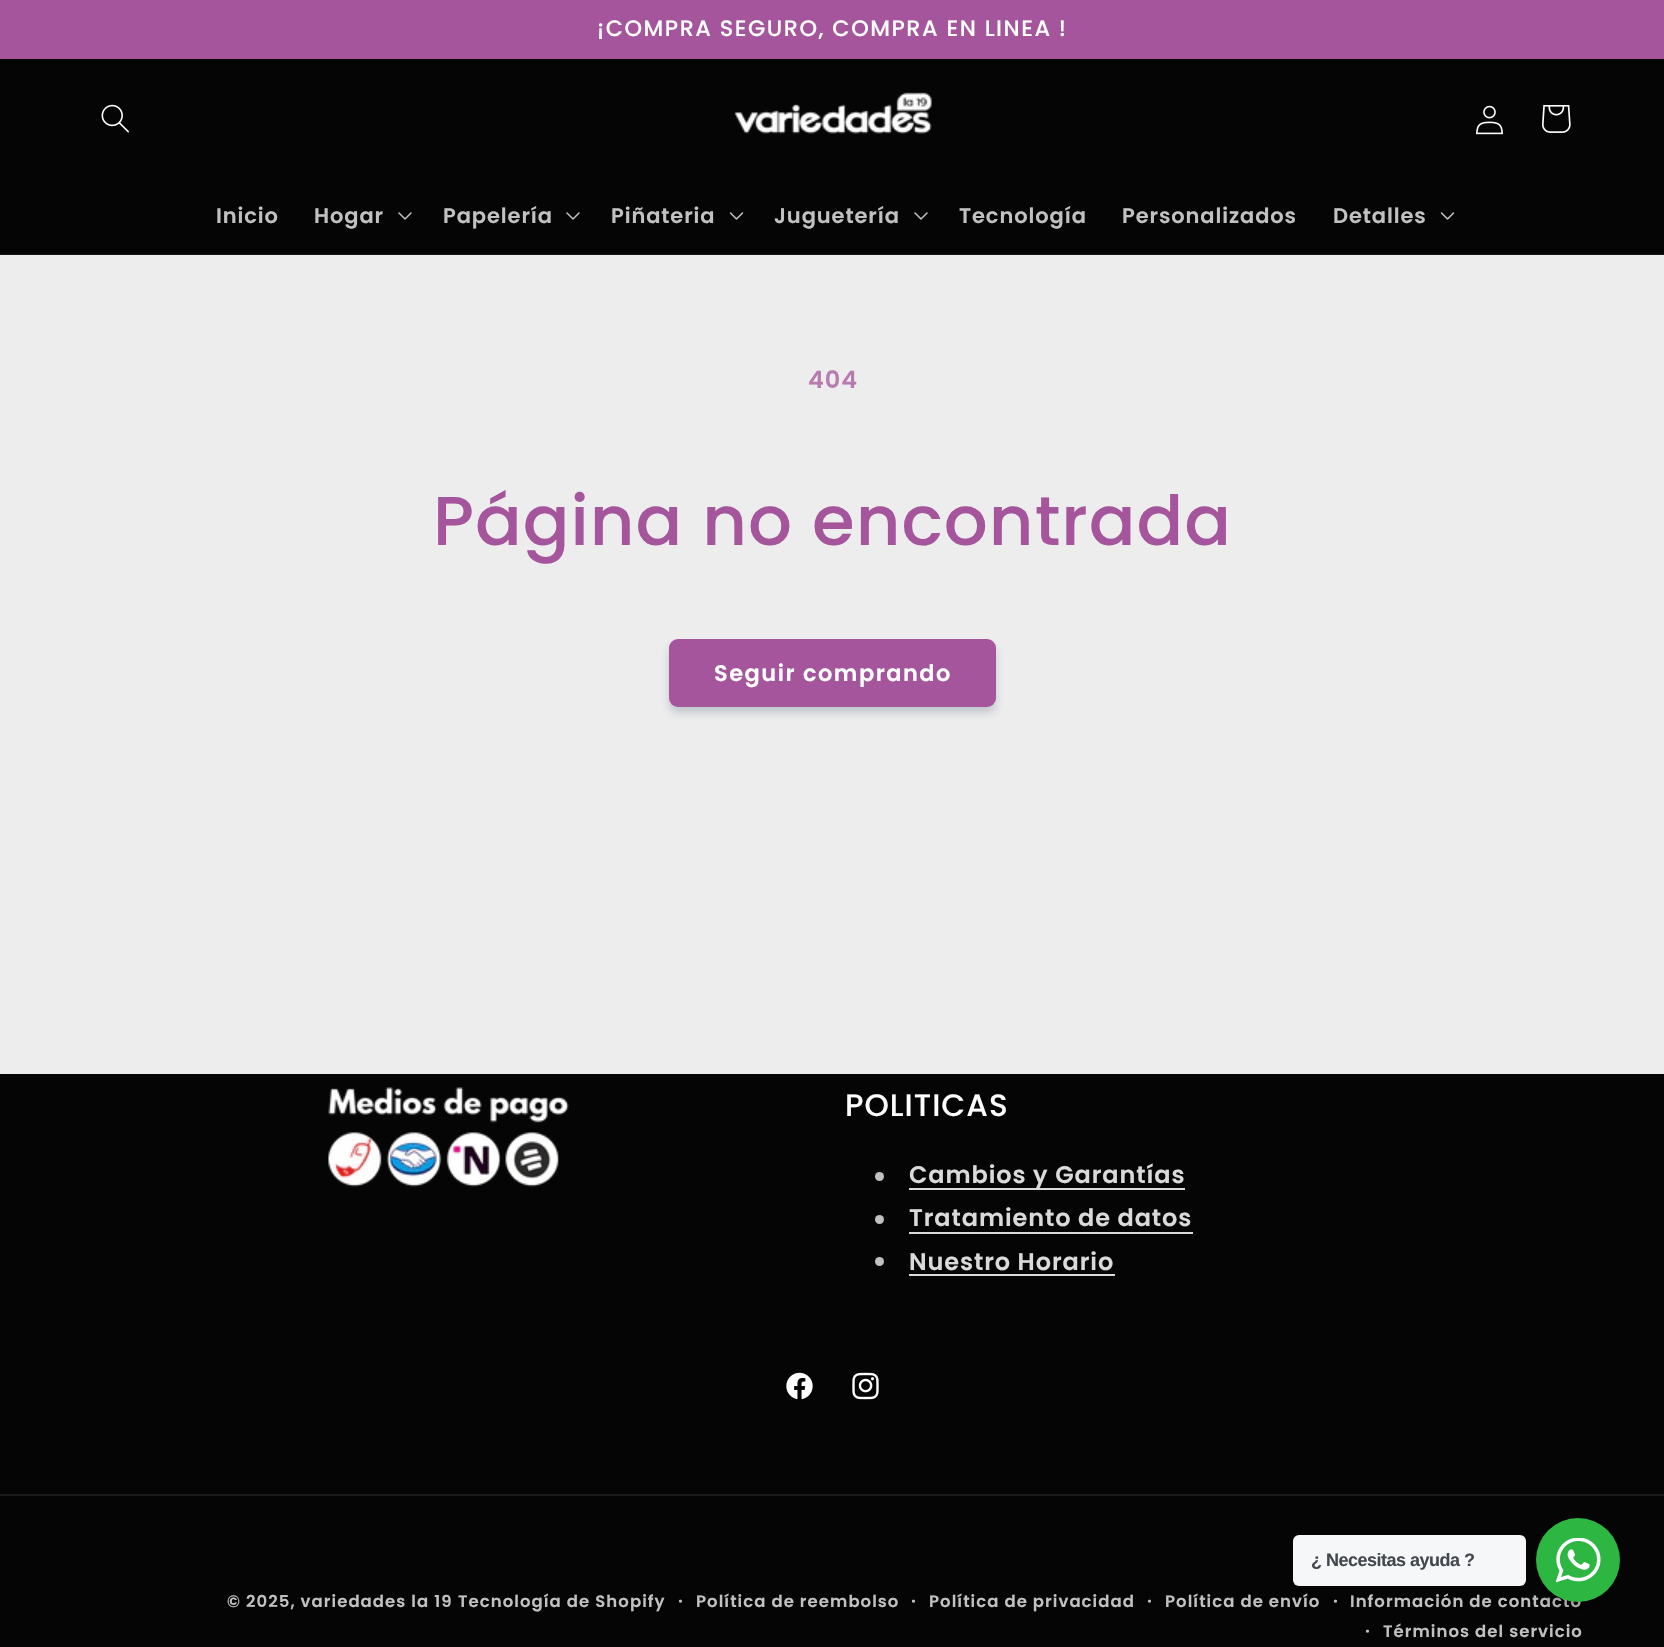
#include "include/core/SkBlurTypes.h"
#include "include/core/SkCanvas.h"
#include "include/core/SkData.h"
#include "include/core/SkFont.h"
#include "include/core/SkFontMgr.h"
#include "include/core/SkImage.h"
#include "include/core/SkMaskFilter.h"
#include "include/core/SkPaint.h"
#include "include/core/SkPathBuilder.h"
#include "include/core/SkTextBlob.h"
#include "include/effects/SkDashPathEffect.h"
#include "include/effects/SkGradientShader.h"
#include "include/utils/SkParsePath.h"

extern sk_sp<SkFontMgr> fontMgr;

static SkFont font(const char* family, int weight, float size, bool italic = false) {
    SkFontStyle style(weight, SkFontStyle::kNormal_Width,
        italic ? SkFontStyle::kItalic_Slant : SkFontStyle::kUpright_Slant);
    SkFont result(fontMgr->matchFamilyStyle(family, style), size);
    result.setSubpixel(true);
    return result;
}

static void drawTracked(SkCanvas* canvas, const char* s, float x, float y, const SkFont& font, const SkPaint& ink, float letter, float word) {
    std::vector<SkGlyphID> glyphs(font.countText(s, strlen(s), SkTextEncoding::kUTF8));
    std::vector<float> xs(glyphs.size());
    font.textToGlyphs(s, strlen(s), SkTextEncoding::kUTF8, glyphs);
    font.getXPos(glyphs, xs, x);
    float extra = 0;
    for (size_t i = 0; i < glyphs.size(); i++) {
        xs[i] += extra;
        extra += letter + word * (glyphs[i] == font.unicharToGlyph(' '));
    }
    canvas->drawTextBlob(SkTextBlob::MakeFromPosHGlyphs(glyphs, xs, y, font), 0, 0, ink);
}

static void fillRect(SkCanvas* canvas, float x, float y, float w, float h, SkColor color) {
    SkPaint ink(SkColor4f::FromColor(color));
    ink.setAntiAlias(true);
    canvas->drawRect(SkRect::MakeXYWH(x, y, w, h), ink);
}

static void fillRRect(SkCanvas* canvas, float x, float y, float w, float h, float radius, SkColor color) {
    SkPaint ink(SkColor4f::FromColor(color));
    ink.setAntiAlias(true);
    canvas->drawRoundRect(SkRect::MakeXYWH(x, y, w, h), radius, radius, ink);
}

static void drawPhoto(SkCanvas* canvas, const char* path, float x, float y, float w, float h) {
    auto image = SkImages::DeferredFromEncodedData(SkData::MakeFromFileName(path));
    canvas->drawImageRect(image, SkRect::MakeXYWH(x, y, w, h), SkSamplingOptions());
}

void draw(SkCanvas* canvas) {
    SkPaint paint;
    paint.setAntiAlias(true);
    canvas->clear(0xFFEDEDED);
    fillRect(canvas, 0, 0, 1664, 59, 0xFFA5559C);
    SkFont font1 = font("Poppins", 500, 22.4f);
    paint.setColor(0xFFFFFFFF);
    drawTracked(canvas, "¡COMPRA SEGURO, COMPRA EN LINEA !", 597, 36, font1, paint, 1.5f, 0);
    fillRect(canvas, 0, 59, 1664, 195, 0xFF050505);
    fillRect(canvas, 0, 254, 1664, 1, 0xFF191919);
    drawPhoto(canvas, "assets/img1.png", 101, 104, 28, 29);
    drawPhoto(canvas, "assets/img2.png", 734, 92, 198, 42);
    drawPhoto(canvas, "assets/img3.png", 1476, 105, 27, 30);
    drawPhoto(canvas, "assets/img4.png", 1542, 105, 29, 28);
    SkFont font2 = font("Poppins", 600, 21);
    paint.setColor(0xFFC1C1C1);
    drawTracked(canvas, "Inicio", 216, 223, font2, paint, 0.9f, 0);
    drawTracked(canvas, "Hogar", 314, 223, font2, paint, 0.9f, 0);
    drawPhoto(canvas, "assets/img5.png", 398, 212, 14, 8);
    drawTracked(canvas, "Papelería", 443, 223, font2, paint, 0.9f, 0);
    drawPhoto(canvas, "assets/img5.png", 566, 212, 14, 8);
    drawTracked(canvas, "Piñateria", 611, 223, font2, paint, 0.9f, 0);
    drawPhoto(canvas, "assets/img6.png", 729, 212, 15, 8);
    drawTracked(canvas, "Juguetería", 774, 223, font2, paint, 0.9f, 0);
    drawPhoto(canvas, "assets/img5.png", 914, 212, 14, 8);
    drawTracked(canvas, "Tecnología", 959, 223, font2, paint, 0.9f, 0);
    drawTracked(canvas, "Personalizados", 1122, 223, font2, paint, 0.9f, 0);
    drawTracked(canvas, "Detalles", 1333, 223, font2, paint, 0.9f, 0);
    drawPhoto(canvas, "assets/img6.png", 1440, 212, 15, 8);
    SkFont font3 = font("Poppins", 600, 24);
    paint.setColor(0xFFB77BB0);
    drawTracked(canvas, "404", 808, 388, font3, paint, 0.9f, 0);
    SkFont font4 = font("Poppins", 500, 69);
    paint.setColor(0xFFA5559C);
    drawTracked(canvas, "Página no encontrada", 433, 545, font4, paint, 1, 0);
    paint.setColor(0x33162D4D);
    paint.setMaskFilter(SkMaskFilter::MakeBlur(kNormal_SkBlurStyle, 4));
    canvas->drawRoundRect(SkRect::MakeXYWH(669, 645, 327, 68), 9, 9, paint);
    paint.setMaskFilter(nullptr);
    fillRRect(canvas, 669, 639, 327, 68, 9, 0xFFA5559C);
    SkFont font5 = font("Poppins", 600, 22.5f);
    paint.setColor(0xFFFFFFFF);
    drawTracked(canvas, "Seguir comprando", 714, 681, font5, paint, 1.5f, 0);
    fillRect(canvas, 0, 1074, 1664, 573, 0xFF050505);
    drawPhoto(canvas, "assets/img7.png", 328, 1087, 241, 100);
    SkFont font6 = font("Poppins", 500, 31);
    drawTracked(canvas, "POLITICAS", 845, 1116, font6, paint, 1, 0);
    paint.setColor(0xFFC1C1C1);
    canvas->drawCircle(879.5f, 1176.5f, 4.5f, paint);
    fillRect(canvas, 909, 1188, 276, 2, 0xFFDADADA);
    paint.setColor(0xFFDADADA);
    drawTracked(canvas, "Cambios y Garantías", 909, 1183, font3, paint, 0.9f, 0);
    paint.setColor(0xFFC1C1C1);
    canvas->drawCircle(879.5f, 1219.5f, 4.5f, paint);
    paint.setColor(0xFFDADADA);
    drawTracked(canvas, "Tratamiento de datos", 909, 1226, font3, paint, 0.9f, 0);
    fillRect(canvas, 909, 1232, 284, 2, 0xFFDADADA);
    paint.setColor(0xFFC1C1C1);
    canvas->drawCircle(879.5f, 1261.5f, 4.5f, paint);
    paint.setColor(0xFFDADADA);
    drawTracked(canvas, "Nuestro Horario", 909, 1270, font3, paint, 0.9f, 0);
    fillRect(canvas, 909, 1274, 206, 2, 0xFFDADADA);
    drawPhoto(canvas, "assets/img8.png", 786, 1372, 27, 28);
    drawPhoto(canvas, "assets/img9.png", 852, 1372, 27, 28);
    fillRect(canvas, 0, 1494, 1664, 2, 0xFF191919);
    SkFont font7 = font("Poppins", 600, 16.5f);
    paint.setColor(0xFFC1C1C1);
    drawTracked(canvas, "© 2025, variedades la 19", 227, 1607, font7, paint, 1.05f, 0);
    drawTracked(canvas, "Tecnología de Shopify", 458, 1607, font7, paint, 1.05f, 0);
    SkFont font8 = font("Poppins", 600, 18);
    drawTracked(canvas, "·", 678, 1607, font8, paint, 1.05f, 0);
    drawTracked(canvas, "Política de reembolso", 696, 1607, font7, paint, 1.05f, 0);
    drawTracked(canvas, "·", 911, 1607, font8, paint, 1.05f, 0);
    drawTracked(canvas, "Política de privacidad", 929, 1607, font7, paint, 1.05f, 0);
    drawTracked(canvas, "·", 1147, 1607, font8, paint, 1.05f, 0);
    drawTracked(canvas, "Política de envío", 1165, 1607, font7, paint, 1.05f, 0);
    drawTracked(canvas, "·", 1333, 1607, font8, paint, 1.05f, 0);
    drawTracked(canvas, "Información de contacto", 1350, 1607, font7, paint, 1.05f, 0);
    drawTracked(canvas, "·", 1365, 1637, font8, paint, 1.05f, 0);
    drawTracked(canvas, "Términos del servicio", 1383, 1637, font7, paint, 1.05f, 0);
    paint.setColor(0x24000000);
    paint.setMaskFilter(SkMaskFilter::MakeBlur(kNormal_SkBlurStyle, 6));
    canvas->drawRoundRect(SkRect::MakeXYWH(1533, 1524, 90, 90), 45, 45, paint);
    paint.setMaskFilter(nullptr);
    fillRRect(canvas, 1293, 1535, 233, 51, 6, 0xFFF5F7F9);
    SkFont font9 = font("Liberation Sans", 700, 18);
    paint.setColor(0xFF43474E);
    drawTracked(canvas, "¿ Necesitas ayuda ?", 1311, 1566, font9, paint, -0.5f, 0);
    paint.setColor(0xFF2DB742);
    canvas->drawCircle(1578, 1560, 42, paint);
    drawPhoto(canvas, "assets/img10.png", 1556, 1538, 45, 45);
}
